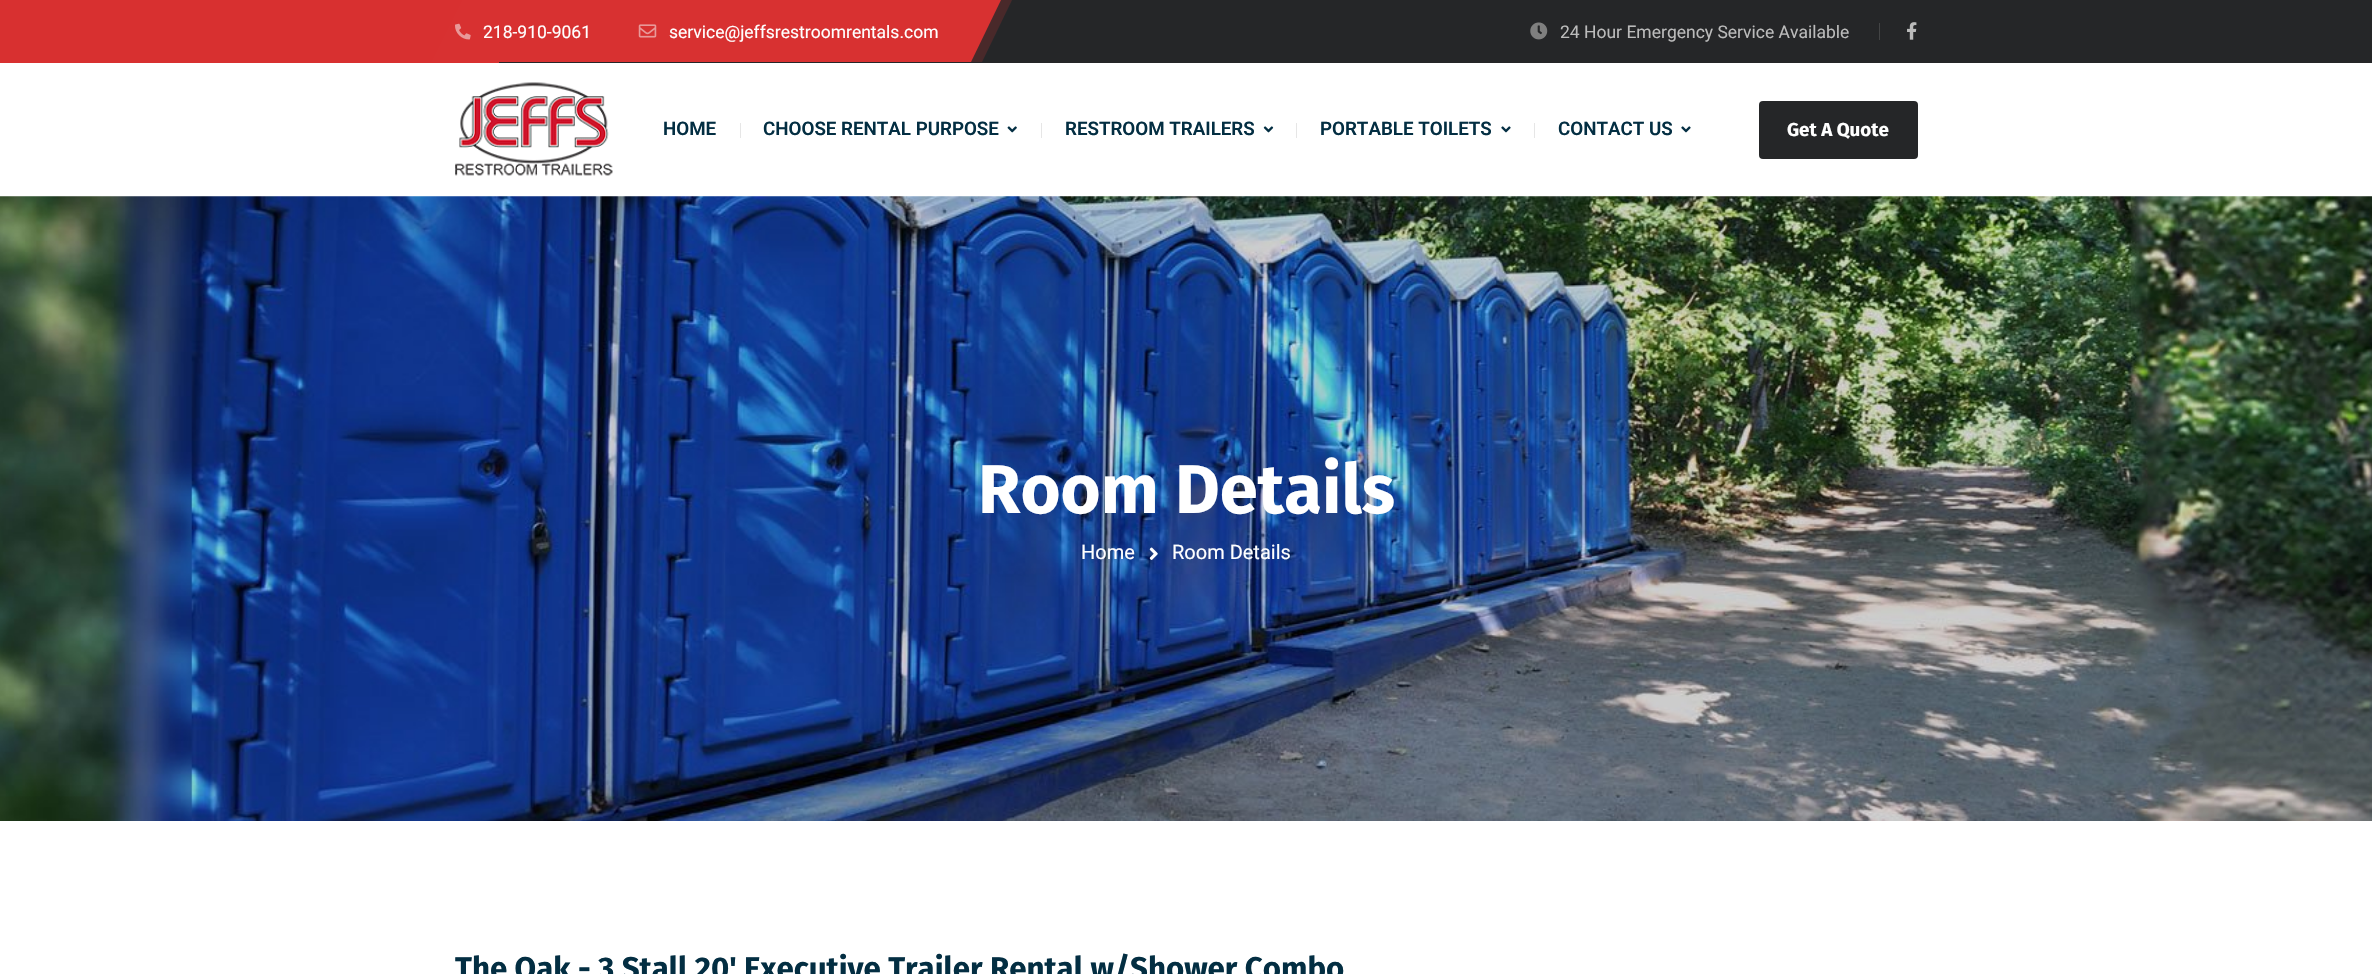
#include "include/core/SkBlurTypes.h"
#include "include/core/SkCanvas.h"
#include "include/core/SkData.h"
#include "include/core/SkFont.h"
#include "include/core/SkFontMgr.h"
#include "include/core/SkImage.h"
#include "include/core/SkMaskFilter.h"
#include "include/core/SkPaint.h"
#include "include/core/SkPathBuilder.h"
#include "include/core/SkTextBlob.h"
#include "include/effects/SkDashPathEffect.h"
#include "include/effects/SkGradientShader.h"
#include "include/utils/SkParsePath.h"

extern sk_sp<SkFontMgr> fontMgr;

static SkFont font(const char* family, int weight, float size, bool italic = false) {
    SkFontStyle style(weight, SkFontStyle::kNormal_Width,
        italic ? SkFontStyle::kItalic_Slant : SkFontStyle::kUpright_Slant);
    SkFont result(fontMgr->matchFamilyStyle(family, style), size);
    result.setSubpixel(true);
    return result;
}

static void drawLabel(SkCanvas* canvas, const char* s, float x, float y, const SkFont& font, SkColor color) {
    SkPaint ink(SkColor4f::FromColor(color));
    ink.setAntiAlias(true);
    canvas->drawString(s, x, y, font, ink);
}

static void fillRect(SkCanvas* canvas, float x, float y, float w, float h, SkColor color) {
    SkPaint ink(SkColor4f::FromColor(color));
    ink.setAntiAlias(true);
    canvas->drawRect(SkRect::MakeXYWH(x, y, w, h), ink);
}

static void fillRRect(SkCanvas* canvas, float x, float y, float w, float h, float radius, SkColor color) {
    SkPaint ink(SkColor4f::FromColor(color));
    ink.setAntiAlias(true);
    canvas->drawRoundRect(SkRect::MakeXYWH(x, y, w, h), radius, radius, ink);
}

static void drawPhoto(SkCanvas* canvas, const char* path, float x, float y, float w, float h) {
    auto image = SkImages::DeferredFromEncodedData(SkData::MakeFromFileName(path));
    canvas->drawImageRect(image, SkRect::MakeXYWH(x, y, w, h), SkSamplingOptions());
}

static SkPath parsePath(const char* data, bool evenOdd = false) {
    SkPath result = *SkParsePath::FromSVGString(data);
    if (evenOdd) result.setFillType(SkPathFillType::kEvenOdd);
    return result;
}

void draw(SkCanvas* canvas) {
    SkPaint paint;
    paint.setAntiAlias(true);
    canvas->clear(0xFFFFFFFF);
    fillRect(canvas, 499, 0, 1873, 63, 0xFF252628);
    fillRect(canvas, 0, 0, 499, 63, 0xFFD83030);
    paint.setColor(0xFFD83030);
    canvas->drawPath(parsePath("M451 0H1001L971 62H421Z"), paint);
    paint.setColor(0x33D83030);
    canvas->drawPath(parsePath("M463 0H1012L982 62H432Z"), paint);
    drawPhoto(canvas, "assets/img1.png", 455, 23, 16, 17);
    SkFont font1 = font("Roboto", 400, 17.5f);
    drawLabel(canvas, "218-910-9061", 483, 38, font1, 0xFFFFFFFF);
    drawPhoto(canvas, "assets/img2.png", 638, 24, 19, 14);
    drawLabel(canvas, "service@jeffsrestroomrentals.com", 669, 38, font1, 0xFFFFFFFF);
    drawPhoto(canvas, "assets/img3.png", 1530, 22, 18, 18);
    drawLabel(canvas, "24 Hour Emergency Service Available", 1560, 38, font1, 0xFFBBBBBB);
    fillRect(canvas, 1879, 23, 1, 17, 0xFF434445);
    drawPhoto(canvas, "assets/img4.png", 1907, 22, 10, 18);
    drawPhoto(canvas, "assets/img5.png", 455, 82, 158, 94);
    SkFont font2 = font("Roboto", 600, 18.75f);
    drawLabel(canvas, "HOME", 663, 135, font2, 0xFF032E42);
    fillRect(canvas, 740, 123, 1, 15, 0xFFE6E6E6);
    drawLabel(canvas, "CHOOSE RENTAL PURPOSE", 763, 135, font2, 0xFF032E42);
    drawPhoto(canvas, "assets/img6.png", 1007, 126, 10, 7);
    fillRect(canvas, 1041, 123, 1, 15, 0xFFE6E6E6);
    drawLabel(canvas, "RESTROOM TRAILERS", 1065, 135, font2, 0xFF032E42);
    drawPhoto(canvas, "assets/img7.png", 1263, 126, 11, 7);
    fillRect(canvas, 1296, 123, 1, 15, 0xFFE6E6E6);
    drawLabel(canvas, "PORTABLE TOILETS", 1320, 135, font2, 0xFF032E42);
    drawPhoto(canvas, "assets/img8.png", 1501, 126, 10, 7);
    fillRect(canvas, 1534, 123, 1, 15, 0xFFE6E6E6);
    drawLabel(canvas, "CONTACT US", 1558, 135, font2, 0xFF032E42);
    drawPhoto(canvas, "assets/img8.png", 1681, 126, 10, 7);
    fillRRect(canvas, 1759, 101, 159, 58, 4, 0xFF252628);
    SkFont font3 = font("Fira Sans", 700, 18.75f);
    drawLabel(canvas, "Get A Quote", 1787, 136, font3, 0xFFFFFFFF);
    drawPhoto(canvas, "assets/img9.png", 0, 196, 2372, 625);
    SkFont font4 = font("Fira Sans", 700, 68.75f);
    drawLabel(canvas, "Room Details", 978, 513, font4, 0xFFFFFFFF);
    SkFont font5 = font("Roboto", 400, 20);
    drawLabel(canvas, "Home", 1081, 559, font5, 0xFFFFFFFF);
    drawPhoto(canvas, "assets/img10.png", 1149, 547, 9, 13);
    drawLabel(canvas, "Room Details", 1172, 559, font5, 0xFFFFFFFF);
    SkFont font6 = font("Fira Sans", 700, 31.25f);
    drawLabel(canvas, "The Oak - 3 Stall 20' Executive Trailer Rental w/Shower Combo", 455, 979, font6, 0xFF032E42);
}
